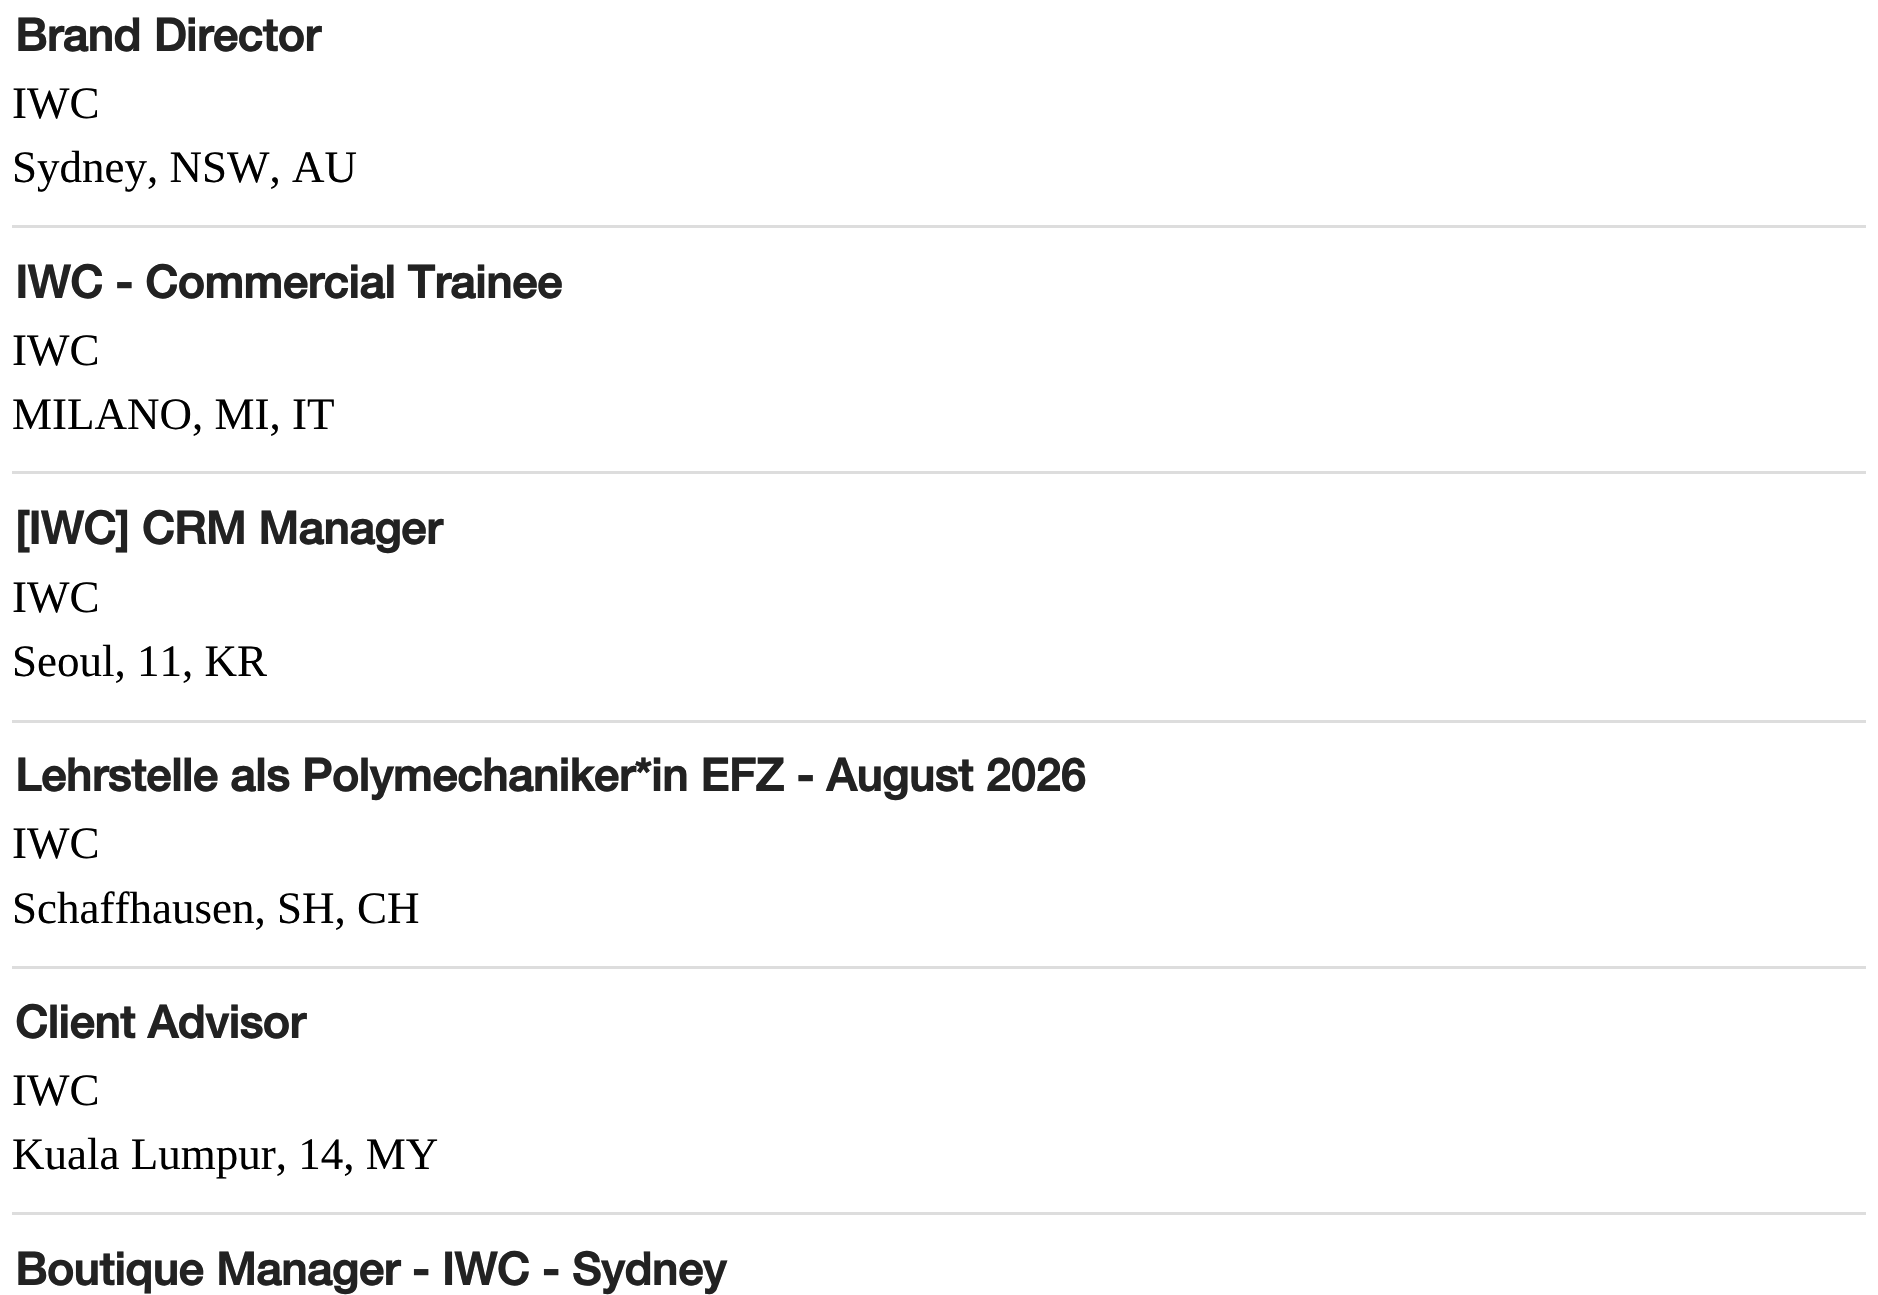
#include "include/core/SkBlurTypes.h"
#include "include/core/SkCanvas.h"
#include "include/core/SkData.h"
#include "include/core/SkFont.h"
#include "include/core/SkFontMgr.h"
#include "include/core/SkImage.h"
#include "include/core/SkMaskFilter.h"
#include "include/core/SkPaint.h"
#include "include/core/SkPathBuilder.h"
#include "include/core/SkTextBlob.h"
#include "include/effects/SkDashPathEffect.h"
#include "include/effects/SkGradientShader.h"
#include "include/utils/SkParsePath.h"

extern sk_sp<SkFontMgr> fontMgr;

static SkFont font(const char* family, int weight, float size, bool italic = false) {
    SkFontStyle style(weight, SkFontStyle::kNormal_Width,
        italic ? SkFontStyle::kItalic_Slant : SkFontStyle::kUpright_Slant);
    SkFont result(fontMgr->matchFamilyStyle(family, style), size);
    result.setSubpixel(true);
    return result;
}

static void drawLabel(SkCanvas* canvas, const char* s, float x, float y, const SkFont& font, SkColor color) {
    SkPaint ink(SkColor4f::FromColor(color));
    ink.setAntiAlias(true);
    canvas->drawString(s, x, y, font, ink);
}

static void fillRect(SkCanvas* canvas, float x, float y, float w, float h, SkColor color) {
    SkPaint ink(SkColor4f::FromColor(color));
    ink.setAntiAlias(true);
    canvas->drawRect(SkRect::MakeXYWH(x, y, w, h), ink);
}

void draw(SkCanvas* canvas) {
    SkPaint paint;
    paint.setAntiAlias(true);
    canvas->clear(0xFFFFFFFF);
    SkFont font1 = font("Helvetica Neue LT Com", 700, 45);
    drawLabel(canvas, "Brand Director", 15, 51, font1, 0xFF222222);
    SkFont font2 = font("Liberation Serif", 400, 45);
    drawLabel(canvas, "IWC", 12, 118, font2, 0xFF000000);
    drawLabel(canvas, "Sydney, NSW, AU", 12, 182, font2, 0xFF000000);
    fillRect(canvas, 12, 225, 1854, 3, 0xFFDDDDDD);
    drawLabel(canvas, "IWC - Commercial Trainee", 15, 298, font1, 0xFF222222);
    drawLabel(canvas, "IWC", 12, 365, font2, 0xFF000000);
    drawLabel(canvas, "MILANO, MI, IT", 12, 429, font2, 0xFF000000);
    fillRect(canvas, 12, 471, 1854, 3, 0xFFDDDDDD);
    drawLabel(canvas, "[IWC] CRM Manager", 15, 544, font1, 0xFF222222);
    drawLabel(canvas, "IWC", 12, 612, font2, 0xFF000000);
    drawLabel(canvas, "Seoul, 11, KR", 12, 676, font2, 0xFF000000);
    fillRect(canvas, 12, 720, 1854, 3, 0xFFDDDDDD);
    drawLabel(canvas, "Lehrstelle als Polymechaniker*in EFZ - August 2026", 15, 791, font1, 0xFF222222);
    drawLabel(canvas, "IWC", 12, 858, font2, 0xFF000000);
    drawLabel(canvas, "Schaffhausen, SH, CH", 12, 923, font2, 0xFF000000);
    fillRect(canvas, 12, 966, 1854, 3, 0xFFDDDDDD);
    drawLabel(canvas, "Client Advisor", 15, 1038, font1, 0xFF222222);
    drawLabel(canvas, "IWC", 12, 1105, font2, 0xFF000000);
    drawLabel(canvas, "Kuala Lumpur, 14, MY", 12, 1169, font2, 0xFF000000);
    fillRect(canvas, 12, 1212, 1854, 3, 0xFFDDDDDD);
    drawLabel(canvas, "Boutique Manager - IWC - Sydney", 15, 1285, font1, 0xFF222222);
}
